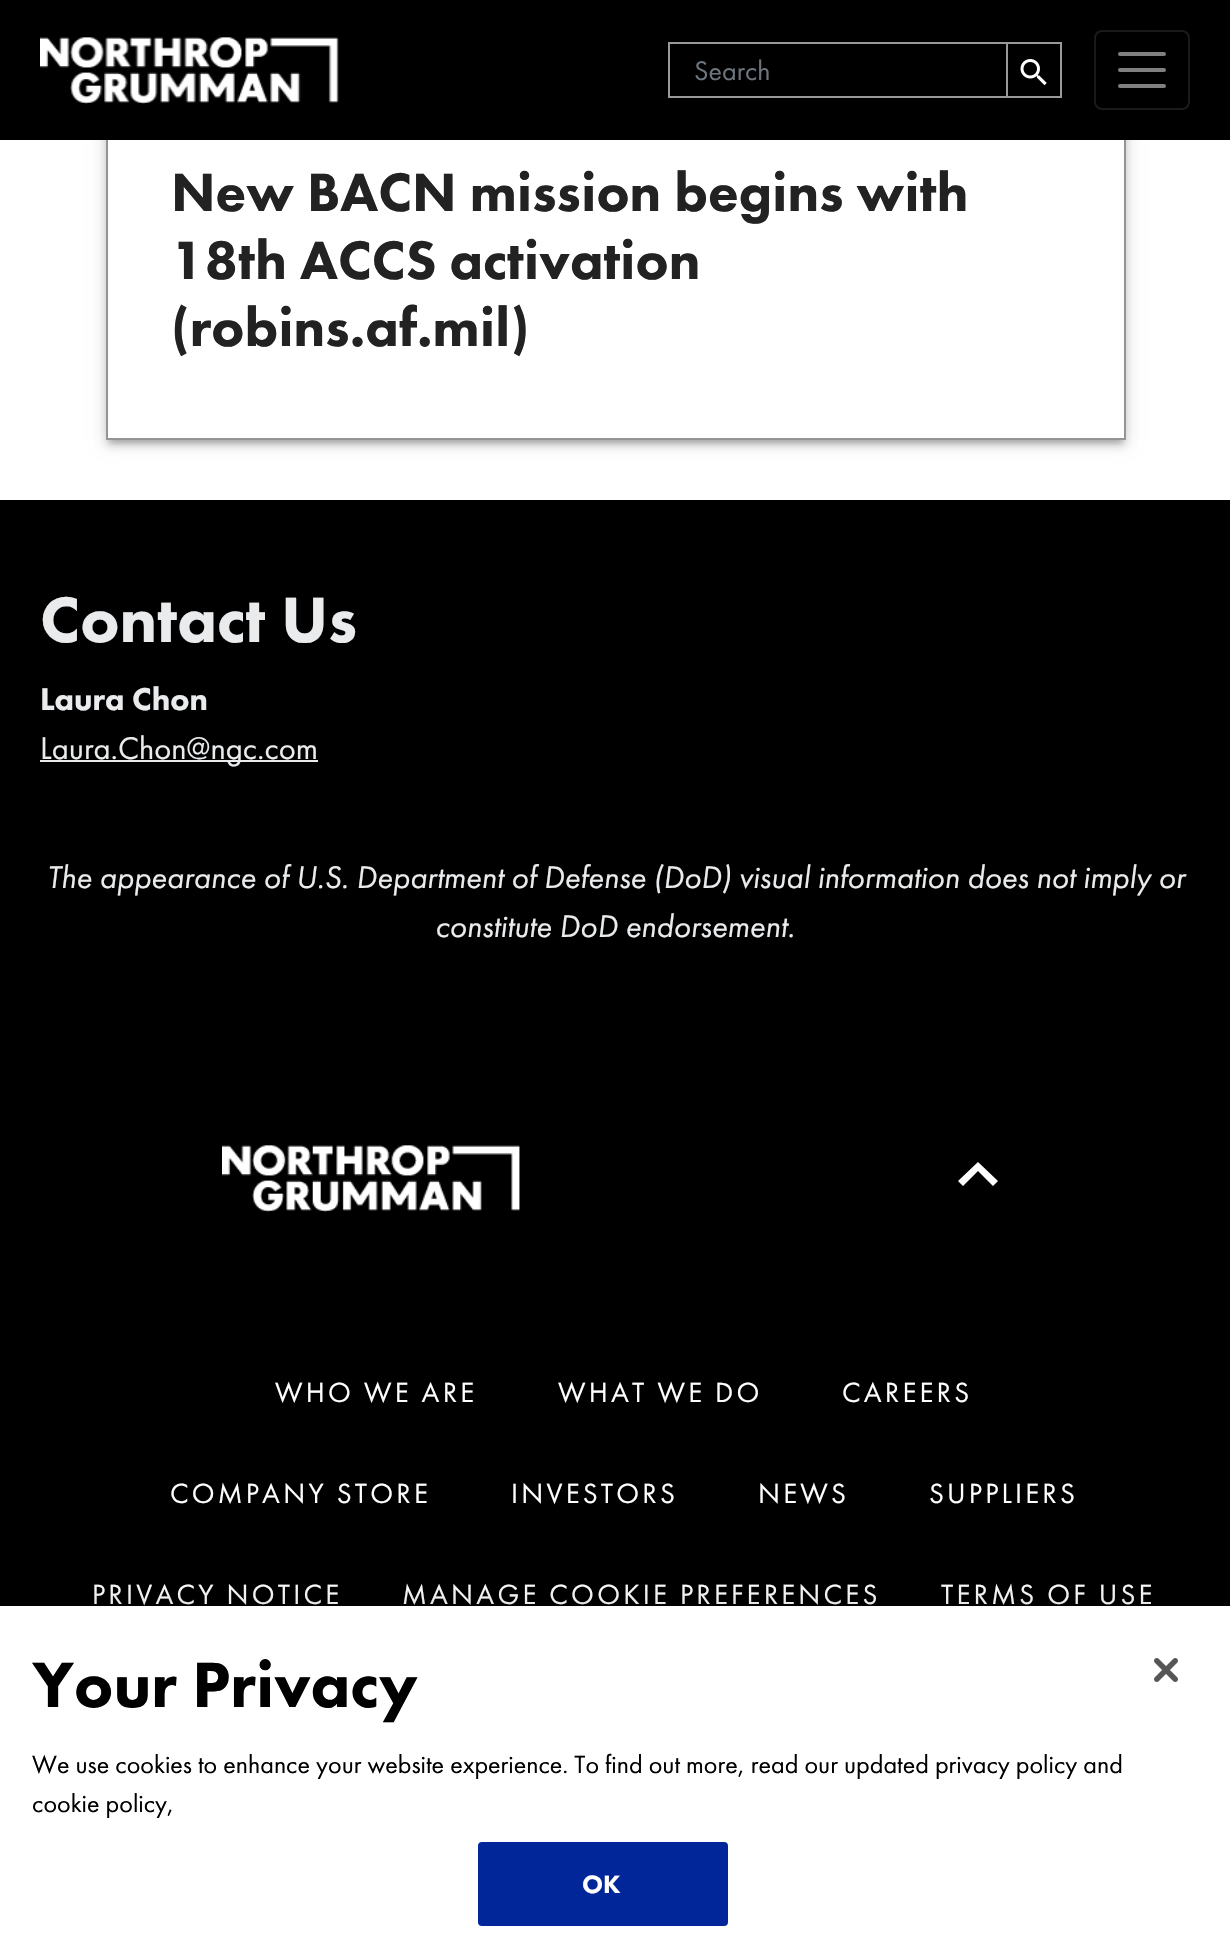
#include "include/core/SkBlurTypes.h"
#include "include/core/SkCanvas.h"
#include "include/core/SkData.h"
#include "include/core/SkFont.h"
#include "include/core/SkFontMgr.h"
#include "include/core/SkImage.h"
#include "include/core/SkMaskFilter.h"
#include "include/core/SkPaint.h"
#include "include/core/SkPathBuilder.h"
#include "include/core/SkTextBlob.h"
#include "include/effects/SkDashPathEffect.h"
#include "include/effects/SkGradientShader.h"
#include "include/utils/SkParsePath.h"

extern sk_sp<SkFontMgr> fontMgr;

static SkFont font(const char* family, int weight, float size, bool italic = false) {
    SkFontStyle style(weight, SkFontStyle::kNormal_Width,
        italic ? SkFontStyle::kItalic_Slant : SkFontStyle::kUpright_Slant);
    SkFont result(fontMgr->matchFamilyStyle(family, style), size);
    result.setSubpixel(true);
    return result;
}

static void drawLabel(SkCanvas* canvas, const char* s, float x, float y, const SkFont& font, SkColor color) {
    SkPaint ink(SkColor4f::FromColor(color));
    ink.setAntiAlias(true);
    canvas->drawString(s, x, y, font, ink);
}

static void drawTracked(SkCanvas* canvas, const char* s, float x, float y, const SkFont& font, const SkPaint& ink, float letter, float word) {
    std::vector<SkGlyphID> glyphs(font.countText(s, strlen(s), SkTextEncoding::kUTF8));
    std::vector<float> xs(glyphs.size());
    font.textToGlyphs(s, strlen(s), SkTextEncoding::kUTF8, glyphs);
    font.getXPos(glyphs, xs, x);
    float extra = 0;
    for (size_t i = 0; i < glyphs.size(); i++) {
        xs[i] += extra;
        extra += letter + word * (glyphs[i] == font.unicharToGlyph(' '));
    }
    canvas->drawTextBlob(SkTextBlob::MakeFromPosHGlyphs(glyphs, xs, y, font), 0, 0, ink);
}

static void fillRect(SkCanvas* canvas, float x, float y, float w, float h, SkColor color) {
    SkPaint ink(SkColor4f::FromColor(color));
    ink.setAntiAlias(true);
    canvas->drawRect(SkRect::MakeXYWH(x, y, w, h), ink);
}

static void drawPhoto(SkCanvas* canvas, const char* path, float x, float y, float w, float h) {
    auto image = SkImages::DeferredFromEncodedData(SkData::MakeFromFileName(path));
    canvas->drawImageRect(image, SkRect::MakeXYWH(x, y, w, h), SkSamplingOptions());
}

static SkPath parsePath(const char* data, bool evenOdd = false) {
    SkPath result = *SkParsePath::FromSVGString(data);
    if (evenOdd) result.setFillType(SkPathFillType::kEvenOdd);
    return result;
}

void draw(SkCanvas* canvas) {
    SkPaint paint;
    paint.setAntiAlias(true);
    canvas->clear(0xFFFFFFFF);
    canvas->save();
    canvas->clipPath(parsePath("M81 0H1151V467H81ZM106-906H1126V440H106Z", true), true);
    paint.setColor(0x1F000000);
    paint.setMaskFilter(SkMaskFilter::MakeBlur(kNormal_SkBlurStyle, 8));
    canvas->drawRect(SkRect::MakeXYWH(106, -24, 1020, 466), paint);
    paint.setMaskFilter(nullptr);
    canvas->restore();
    canvas->save();
    canvas->clipPath(parsePath("M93 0H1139V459H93ZM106-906H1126V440H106Z", true), true);
    paint.setColor(0x24000000);
    paint.setMaskFilter(SkMaskFilter::MakeBlur(kNormal_SkBlurStyle, 4));
    canvas->drawRect(SkRect::MakeXYWH(106, -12, 1020, 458), paint);
    paint.setMaskFilter(nullptr);
    canvas->restore();
    canvas->save();
    canvas->clipRect(SkRect::MakeXYWH(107, 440, 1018, 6));
    paint.setColor(0x33000000);
    paint.setMaskFilter(SkMaskFilter::MakeBlur(kNormal_SkBlurStyle, 3));
    canvas->drawRect(SkRect::MakeXYWH(110, -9, 1012, 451), paint);
    paint.setMaskFilter(nullptr);
    canvas->restore();
    paint.setStroke(true);
    paint.setStrokeWidth(2);
    paint.setColor(0xFF949494);
    canvas->drawRect(SkRect::MakeXYWH(107, -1, 1018, 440), paint);
    fillRect(canvas, 0, 0, 1230, 140, 0xFF000000);
    drawPhoto(canvas, "assets/img1.png", 40, 37, 299, 67);
    paint.setColor(0xFF999999);
    canvas->drawRect(SkRect::MakeXYWH(669, 43, 338, 54), paint);
    SkFont font1 = font("Futura PT", 400, 28);
    drawLabel(canvas, "Search", 694, 80, font1, 0xFF6C757D);
    canvas->drawRect(SkRect::MakeXYWH(1007, 43, 54, 54), paint);
    drawPhoto(canvas, "assets/img2.png", 1020, 59, 27, 27);
    paint.setColor(0xFF1A1A1A);
    canvas->drawRoundRect(SkRect::MakeXYWH(1095, 31, 94, 78), 7, 7, paint);
    paint.setStrokeWidth(4);
    paint.setStrokeCap(SkPaint::kRound_Cap);
    paint.setColor(0xFF808080);
    canvas->drawPath(parsePath("M1120 54H1164M1120 70H1164M1120 86H1164"), paint);
    SkFont font2 = font("Futura PT", 900, 56);
    drawLabel(canvas, "New BACN mission begins with", 171, 211, font2, 0xFF222222);
    drawLabel(canvas, "18th ACCS activation", 171, 279, font2, 0xFF222222);
    drawLabel(canvas, "(robins.af.mil)", 171, 346, font2, 0xFF222222);
    fillRect(canvas, 0, 500, 1230, 1106, 0xFF000000);
    SkFont font3 = font("Futura PT", 900, 66.5f);
    drawLabel(canvas, "Contact Us", 40, 642, font3, 0xFFE9EBED);
    SkFont font4 = font("Futura PT", 900, 32.5f);
    drawLabel(canvas, "Laura Chon", 40, 710, font4, 0xFFE9EBED);
    fillRect(canvas, 40, 760, 278, 2, 0xFFE9EBED);
    SkFont font5 = font("Futura PT", 400, 32.5f);
    drawLabel(canvas, "Laura.Chon@ngc.com", 40, 759, font5, 0xFFE9EBED);
    SkFont font6 = font("Futura PT", 400, 32.5f, true);
    drawLabel(canvas, "The appearance of U.S. Department of Defense (DoD) visual information does not imply or", 47, 888, font6, 0xFFE9EBED);
    drawLabel(canvas, "constitute DoD endorsement.", 435, 937, font6, 0xFFE9EBED);
    drawPhoto(canvas, "assets/img3.png", 222, 1145, 298, 67);
    paint.setStroke(false);
    paint.setColor(0xFFFFFFFF);
    canvas->drawPath(parsePath("M963 1186L978 1171L993 1186L998 1181L978 1162L958 1181Z"), paint);
    SkFont font7 = font("Futura PT", 400, 28.75f);
    drawTracked(canvas, "WHO WE ARE", 275, 1402, font7, paint, 3.2f, 0);
    drawTracked(canvas, "WHAT WE DO", 558, 1402, font7, paint, 3.2f, 0);
    drawTracked(canvas, "CAREERS", 842, 1402, font7, paint, 3.2f, 0);
    drawTracked(canvas, "COMPANY STORE", 170, 1503, font7, paint, 3.2f, 0);
    drawTracked(canvas, "INVESTORS", 511, 1503, font7, paint, 3.2f, 0);
    drawTracked(canvas, "NEWS", 758, 1503, font7, paint, 3.2f, 0);
    drawTracked(canvas, "SUPPLIERS", 929, 1503, font7, paint, 3.2f, 0);
    drawTracked(canvas, "PRIVACY NOTICE", 92, 1604, font7, paint, 3.2f, 0);
    drawTracked(canvas, "MANAGE COOKIE PREFERENCES", 402, 1604, font7, paint, 3.2f, 0);
    drawTracked(canvas, "TERMS OF USE", 941, 1604, font7, paint, 3.2f, 0);
    paint.setColor(0x33000000);
    paint.setMaskFilter(SkMaskFilter::MakeBlur(kNormal_SkBlurStyle, 18));
    canvas->drawRect(SkRect::MakeXYWH(0, 1606, 1230, 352), paint);
    paint.setMaskFilter(nullptr);
    fillRect(canvas, 0, 1606, 1230, 351, 0xFFFFFFFF);
    drawLabel(canvas, "Your Privacy", 32, 1707, font3, 0xFF000000);
    SkFont font8 = font("Futura PT", 400, 26);
    drawLabel(canvas, "We use cookies to enhance your website experience. To find out more, read our updated privacy policy and", 32, 1773, font8, 0xFF000000);
    drawLabel(canvas, "cookie policy,", 32, 1812, font8, 0xFF000000);
    paint.setColor(0xFF00269A);
    canvas->drawRoundRect(SkRect::MakeXYWH(479, 1843, 248, 82), 3, 3, paint);
    paint.setStroke(true);
    paint.setStrokeWidth(2);
    paint.setStrokeCap(SkPaint::kButt_Cap);
    canvas->drawRoundRect(SkRect::MakeXYWH(479, 1843, 248, 82), 3, 3, paint);
    SkFont font9 = font("Futura PT", 900, 26);
    drawLabel(canvas, "OK", 582, 1893, font9, 0xFFFFFFFF);
    drawPhoto(canvas, "assets/img4.png", 1154, 1658, 24, 24);
}
